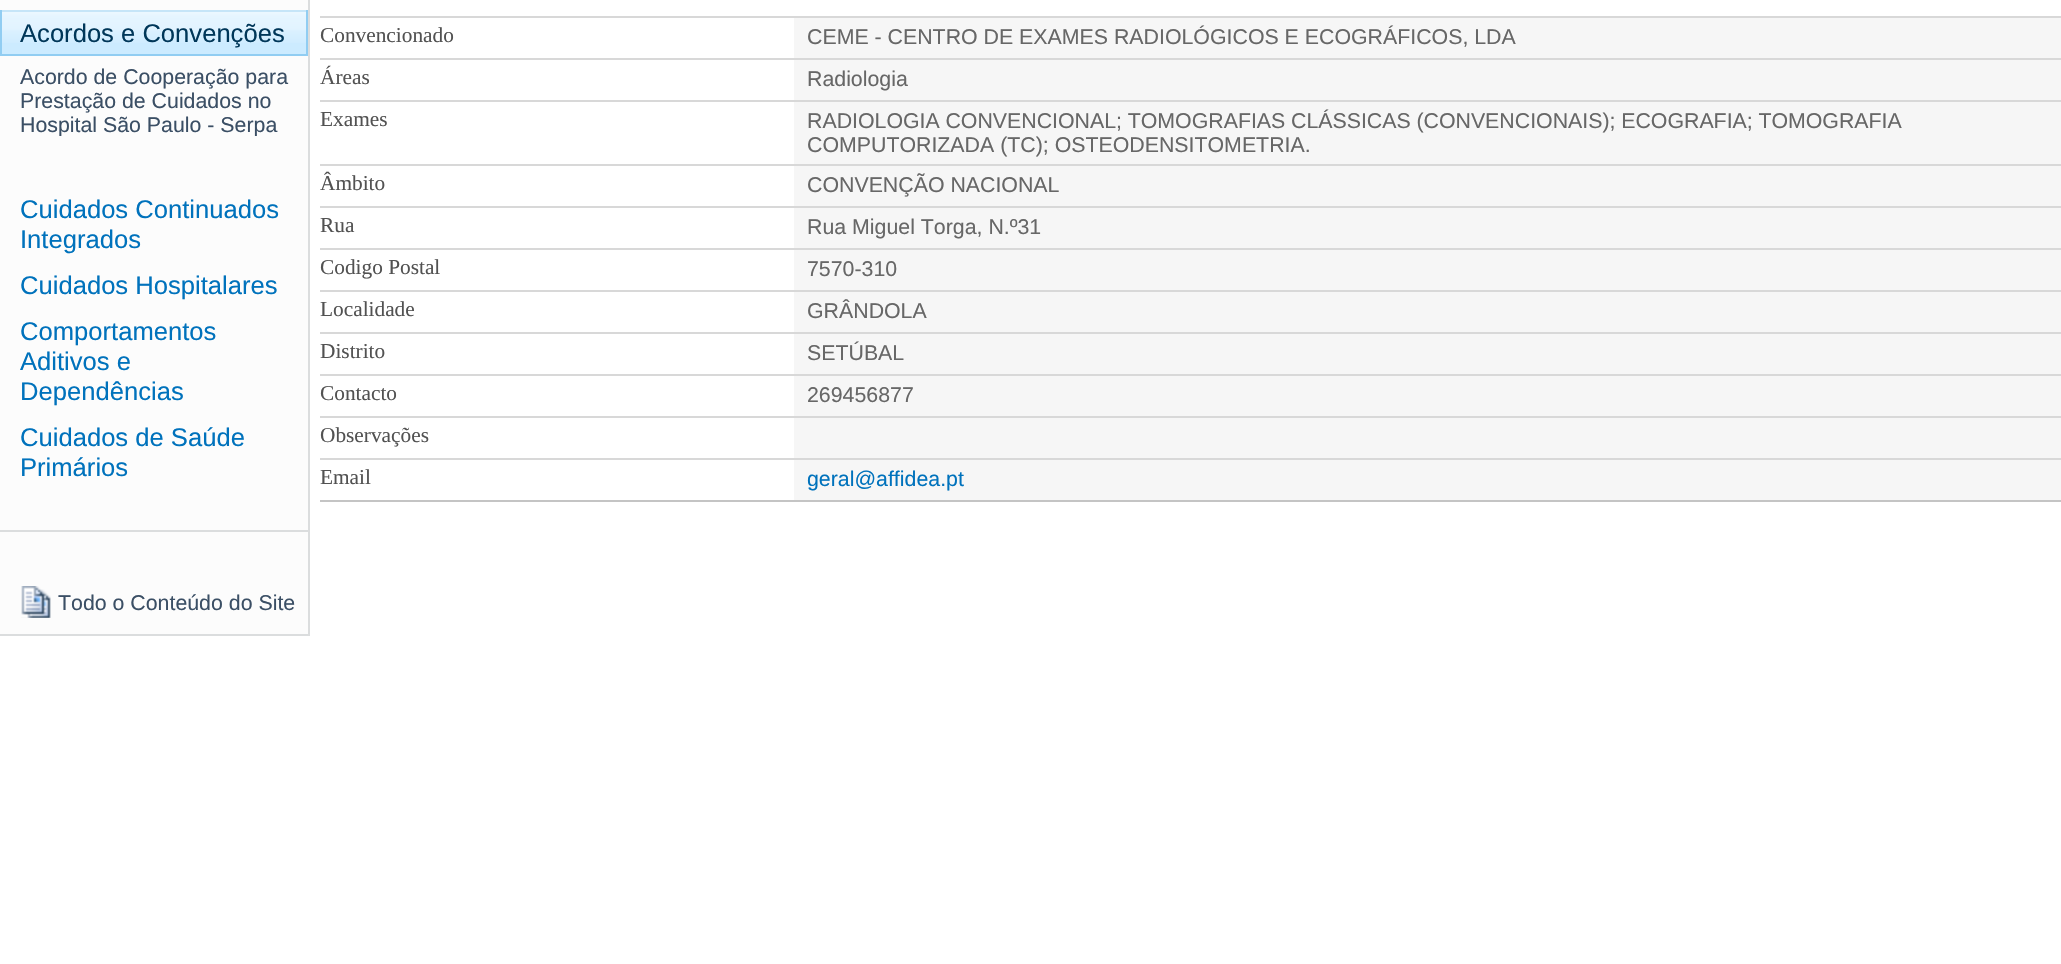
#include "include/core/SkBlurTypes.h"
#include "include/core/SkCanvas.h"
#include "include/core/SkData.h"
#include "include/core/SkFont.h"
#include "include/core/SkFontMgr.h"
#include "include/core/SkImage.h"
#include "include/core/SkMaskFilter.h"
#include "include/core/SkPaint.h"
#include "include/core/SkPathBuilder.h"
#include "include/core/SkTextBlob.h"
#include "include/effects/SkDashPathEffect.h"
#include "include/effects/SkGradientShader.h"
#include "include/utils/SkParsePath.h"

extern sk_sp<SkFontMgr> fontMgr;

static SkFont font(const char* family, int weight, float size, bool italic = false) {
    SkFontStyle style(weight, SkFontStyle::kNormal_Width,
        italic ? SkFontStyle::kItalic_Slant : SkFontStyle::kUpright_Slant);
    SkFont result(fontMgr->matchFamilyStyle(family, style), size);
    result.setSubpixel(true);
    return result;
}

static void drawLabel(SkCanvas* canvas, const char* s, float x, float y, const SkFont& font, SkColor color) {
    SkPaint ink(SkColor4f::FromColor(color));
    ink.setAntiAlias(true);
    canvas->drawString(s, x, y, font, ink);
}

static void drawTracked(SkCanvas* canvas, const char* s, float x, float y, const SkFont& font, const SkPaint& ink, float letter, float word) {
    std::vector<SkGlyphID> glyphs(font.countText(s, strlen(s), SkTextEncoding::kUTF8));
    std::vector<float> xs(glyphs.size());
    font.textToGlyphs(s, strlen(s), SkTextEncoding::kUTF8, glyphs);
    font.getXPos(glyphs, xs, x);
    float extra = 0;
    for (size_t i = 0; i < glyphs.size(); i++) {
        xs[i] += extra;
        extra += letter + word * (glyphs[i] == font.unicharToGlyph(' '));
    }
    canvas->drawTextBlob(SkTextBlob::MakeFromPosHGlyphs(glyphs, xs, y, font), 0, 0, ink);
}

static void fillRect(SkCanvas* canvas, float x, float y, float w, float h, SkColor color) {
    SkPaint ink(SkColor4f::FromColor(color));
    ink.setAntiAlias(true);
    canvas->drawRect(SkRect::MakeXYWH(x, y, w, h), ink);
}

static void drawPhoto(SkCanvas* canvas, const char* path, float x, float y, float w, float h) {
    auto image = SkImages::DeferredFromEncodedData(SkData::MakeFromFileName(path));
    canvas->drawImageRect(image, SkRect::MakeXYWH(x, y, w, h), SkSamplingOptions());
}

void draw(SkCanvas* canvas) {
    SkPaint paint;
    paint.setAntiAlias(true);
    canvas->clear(0xFFFFFFFF);
    fillRect(canvas, 0, 0, 308, 634, 0xFFFCFCFC);
    fillRect(canvas, 308, 0, 2, 636, 0xFFDBDDDE);
    fillRect(canvas, 0, 634, 310, 2, 0xFFDBDDDE);
    fillRect(canvas, 2, 12, 304, 42, 0xFFCCEBFF);
    drawPhoto(canvas, "assets/img1.png", 2, 12, 304, 31);
    fillRect(canvas, 0, 10, 308, 2, 0xFFC6E5F8);
    fillRect(canvas, 306, 10, 2, 46, 0xFF91CDF2);
    fillRect(canvas, 0, 54, 308, 2, 0xFF91CDF2);
    fillRect(canvas, 0, 10, 2, 46, 0xFF91CDF2);
    SkFont font1 = font("Liberation Sans", 400, 25.6f);
    drawLabel(canvas, "Acordos e Convenções", 20, 42, font1, 0xFF003759);
    SkFont font2 = font("Liberation Sans", 400, 21.33f);
    drawLabel(canvas, "Acordo de Cooperação para", 20, 84, font2, 0xFF3B4F65);
    drawLabel(canvas, "Prestação de Cuidados no", 20, 108, font2, 0xFF3B4F65);
    canvas->save();
    canvas->clipRect(SkRect::MakeXYWH(20, 64, 280, 72));
    drawLabel(canvas, "Hospital São Paulo - Serpa", 20, 132, font2, 0xFF3B4F65);
    canvas->restore();
    drawLabel(canvas, "Cuidados Continuados", 20, 218, font1, 0xFF0072BC);
    drawLabel(canvas, "Integrados", 20, 248, font1, 0xFF0072BC);
    drawLabel(canvas, "Cuidados Hospitalares", 20, 294, font1, 0xFF0072BC);
    drawLabel(canvas, "Comportamentos", 20, 340, font1, 0xFF0072BC);
    drawLabel(canvas, "Aditivos e", 20, 370, font1, 0xFF0072BC);
    drawLabel(canvas, "Dependências", 20, 400, font1, 0xFF0072BC);
    drawLabel(canvas, "Cuidados de Saúde", 20, 446, font1, 0xFF0072BC);
    drawLabel(canvas, "Primários", 20, 476, font1, 0xFF0072BC);
    fillRect(canvas, 0, 530, 308, 2, 0xFFDBDDDE);
    drawPhoto(canvas, "assets/img2.png", 21, 586, 30, 32);
    drawLabel(canvas, "Todo o Conteúdo do Site", 58, 610, font2, 0xFF3B4F65);
    fillRect(canvas, 320, 16, 1741, 2, 0xFFD8D8D8);
    SkFont font3 = font("Liberation Serif", 400, 21.33f);
    drawLabel(canvas, "Convencionado", 320, 42, font3, 0xFF525252);
    fillRect(canvas, 794, 18, 1267, 40, 0xFFF6F6F6);
    drawLabel(canvas, "CEME - CENTRO DE EXAMES RADIOLÓGICOS E ECOGRÁFICOS, LDA", 807, 44, font2, 0xFF676767);
    fillRect(canvas, 320, 58, 1741, 2, 0xFFD8D8D8);
    drawLabel(canvas, "Áreas", 320, 84, font3, 0xFF525252);
    fillRect(canvas, 794, 60, 1267, 40, 0xFFF6F6F6);
    drawLabel(canvas, "Radiologia", 807, 86, font2, 0xFF676767);
    fillRect(canvas, 320, 100, 1741, 2, 0xFFD8D8D8);
    drawLabel(canvas, "Exames", 320, 126, font3, 0xFF525252);
    fillRect(canvas, 794, 102, 1267, 62, 0xFFF6F6F6);
    paint.setColor(0xFF676767);
    drawTracked(canvas, "RADIOLOGIA CONVENCIONAL; TOMOGRAFIAS CLÁSSICAS (CONVENCIONAIS); ECOGRAFIA; TOMOGRAFIA", 807, 128, font2, paint, 0, -0.25f);
    drawLabel(canvas, "COMPUTORIZADA (TC); OSTEODENSITOMETRIA.", 807, 152, font2, 0xFF676767);
    fillRect(canvas, 320, 164, 1741, 2, 0xFFD8D8D8);
    drawLabel(canvas, "Âmbito", 320, 190, font3, 0xFF525252);
    fillRect(canvas, 794, 166, 1267, 40, 0xFFF6F6F6);
    drawLabel(canvas, "CONVENÇÃO NACIONAL", 807, 192, font2, 0xFF676767);
    fillRect(canvas, 320, 206, 1741, 2, 0xFFD8D8D8);
    drawLabel(canvas, "Rua", 320, 232, font3, 0xFF525252);
    fillRect(canvas, 794, 208, 1267, 40, 0xFFF6F6F6);
    drawLabel(canvas, "Rua Miguel Torga, N.º31", 807, 234, font2, 0xFF676767);
    fillRect(canvas, 320, 248, 1741, 2, 0xFFD8D8D8);
    drawLabel(canvas, "Codigo Postal", 320, 274, font3, 0xFF525252);
    fillRect(canvas, 794, 250, 1267, 40, 0xFFF6F6F6);
    drawLabel(canvas, "7570-310", 807, 276, font2, 0xFF676767);
    fillRect(canvas, 320, 290, 1741, 2, 0xFFD8D8D8);
    drawLabel(canvas, "Localidade", 320, 316, font3, 0xFF525252);
    fillRect(canvas, 794, 292, 1267, 40, 0xFFF6F6F6);
    drawLabel(canvas, "GRÂNDOLA", 807, 318, font2, 0xFF676767);
    fillRect(canvas, 320, 332, 1741, 2, 0xFFD8D8D8);
    drawLabel(canvas, "Distrito", 320, 358, font3, 0xFF525252);
    fillRect(canvas, 794, 334, 1267, 40, 0xFFF6F6F6);
    drawLabel(canvas, "SETÚBAL", 807, 360, font2, 0xFF676767);
    fillRect(canvas, 320, 374, 1741, 2, 0xFFD8D8D8);
    drawLabel(canvas, "Contacto", 320, 400, font3, 0xFF525252);
    fillRect(canvas, 794, 376, 1267, 40, 0xFFF6F6F6);
    drawLabel(canvas, "269456877", 807, 402, font2, 0xFF676767);
    fillRect(canvas, 320, 416, 1741, 2, 0xFFD8D8D8);
    drawLabel(canvas, "Observações", 320, 442, font3, 0xFF525252);
    fillRect(canvas, 794, 418, 1267, 40, 0xFFF6F6F6);
    fillRect(canvas, 320, 458, 1741, 2, 0xFFD8D8D8);
    drawLabel(canvas, "Email", 320, 484, font3, 0xFF525252);
    fillRect(canvas, 794, 460, 1267, 40, 0xFFF6F6F6);
    drawLabel(canvas, "geral@affidea.pt", 807, 486, font2, 0xFF0072BC);
    fillRect(canvas, 320, 500, 1741, 2, 0xFFC4C4C4);
}
